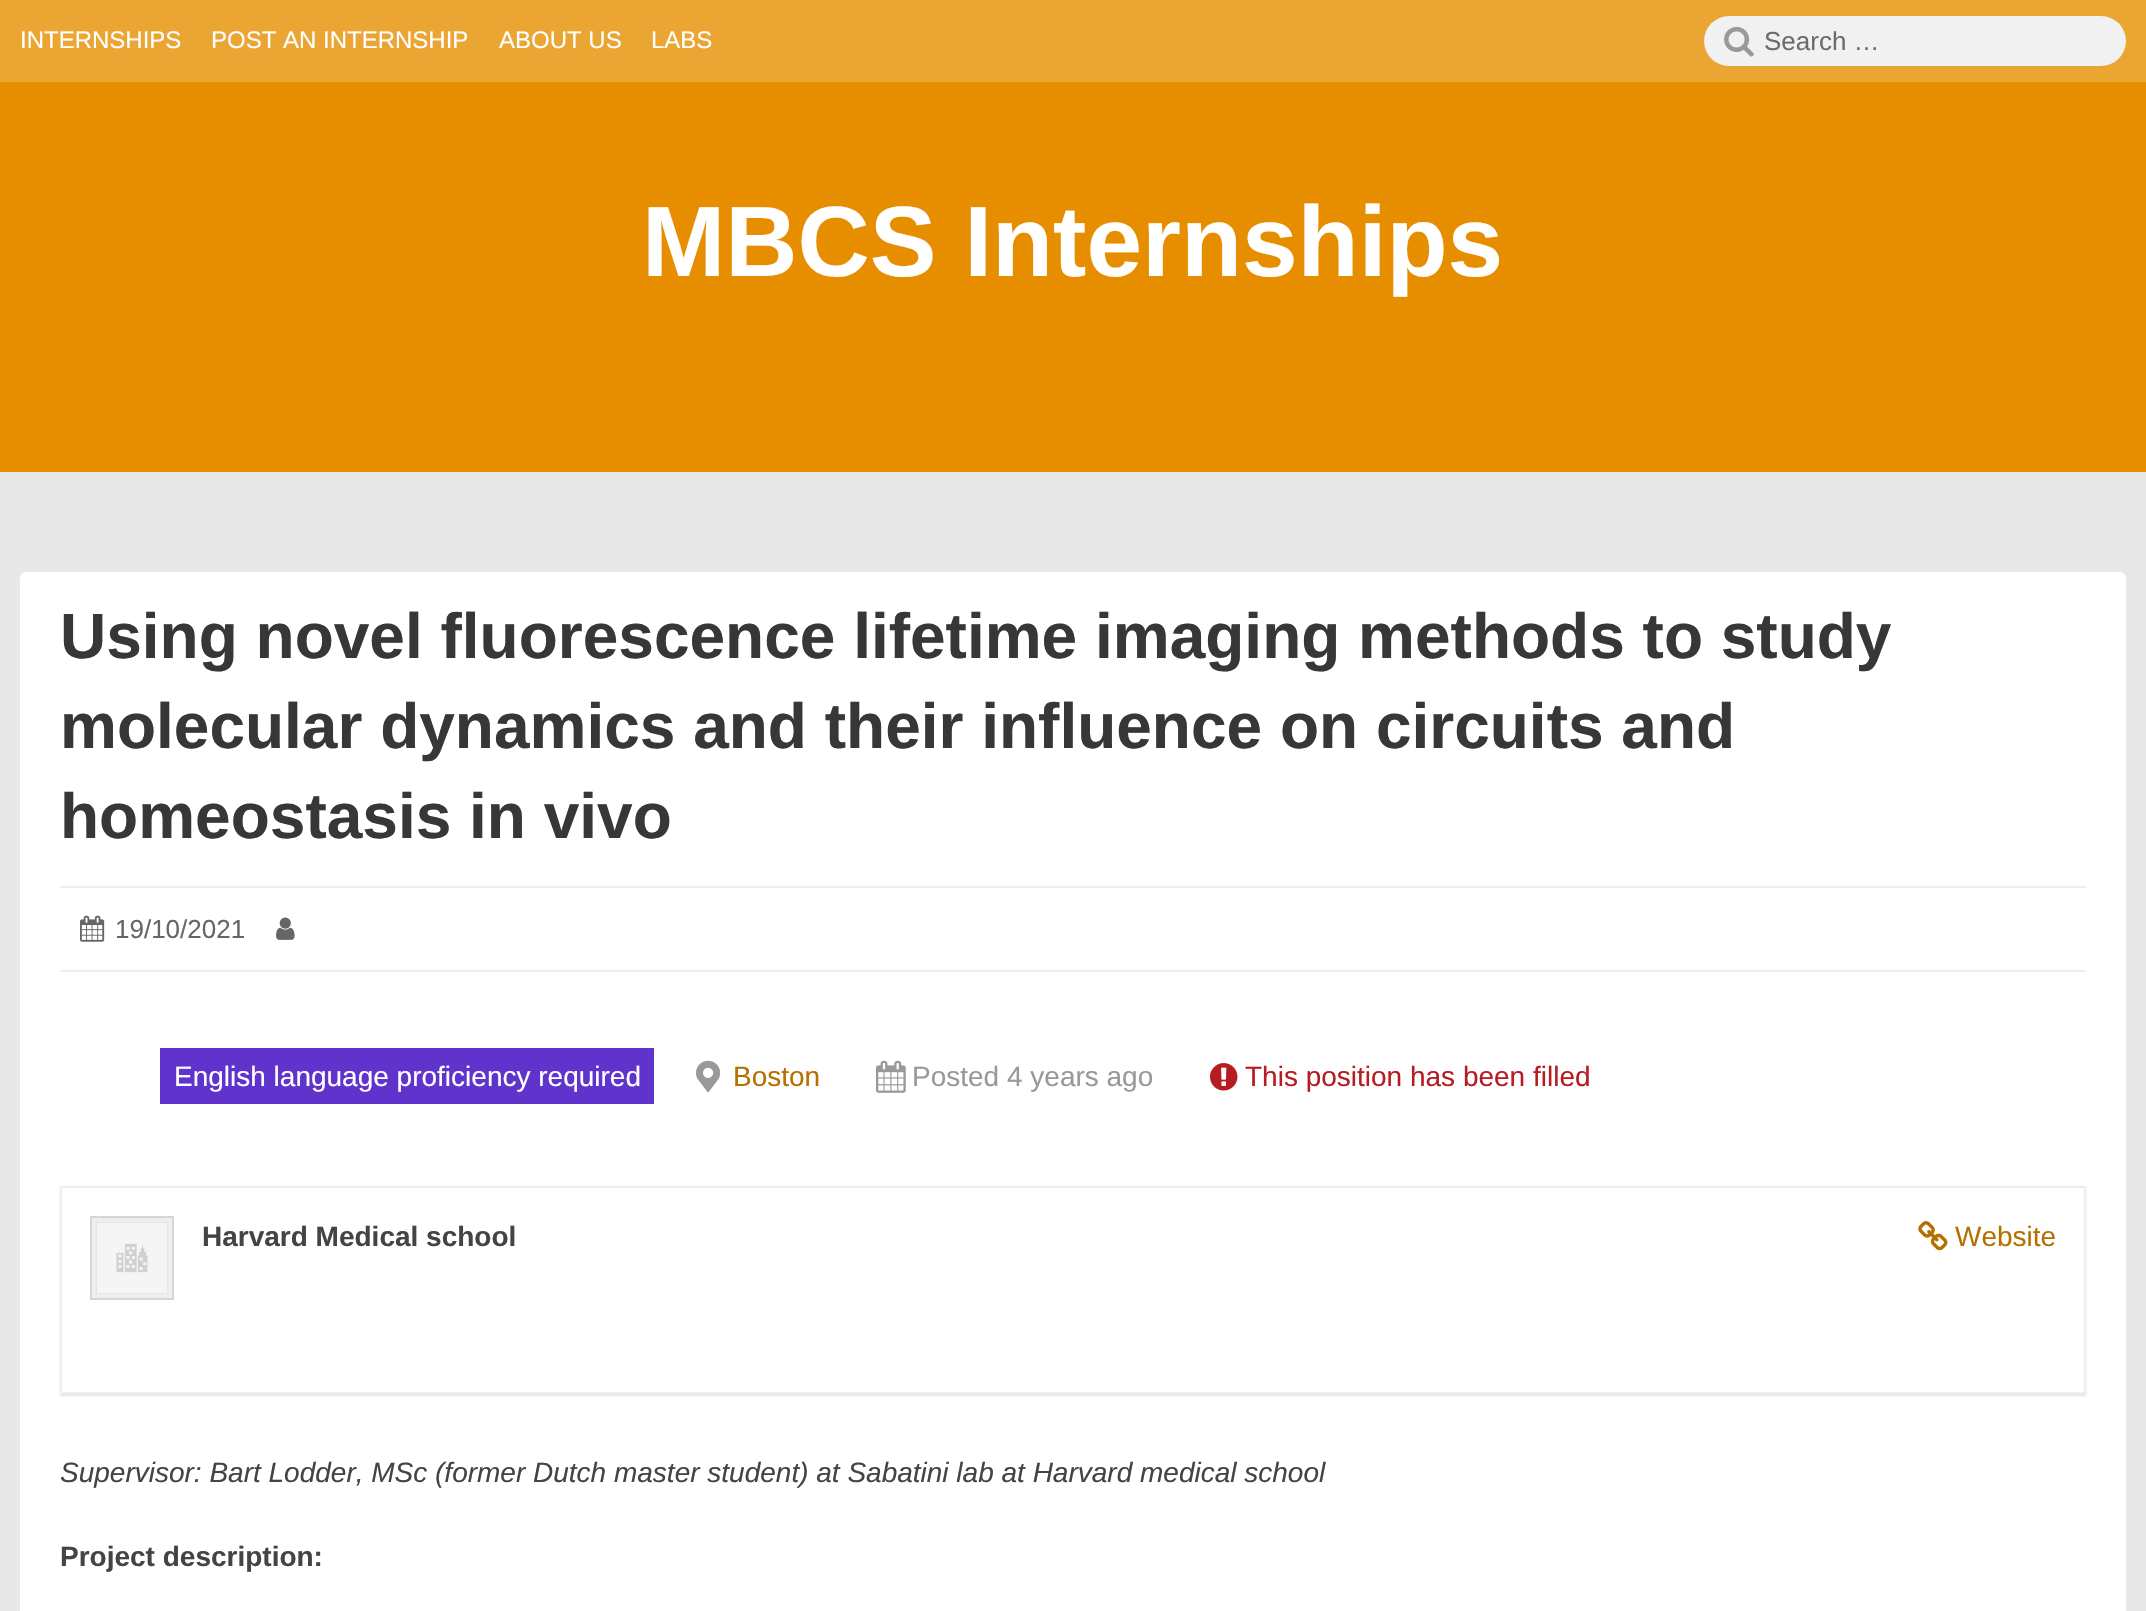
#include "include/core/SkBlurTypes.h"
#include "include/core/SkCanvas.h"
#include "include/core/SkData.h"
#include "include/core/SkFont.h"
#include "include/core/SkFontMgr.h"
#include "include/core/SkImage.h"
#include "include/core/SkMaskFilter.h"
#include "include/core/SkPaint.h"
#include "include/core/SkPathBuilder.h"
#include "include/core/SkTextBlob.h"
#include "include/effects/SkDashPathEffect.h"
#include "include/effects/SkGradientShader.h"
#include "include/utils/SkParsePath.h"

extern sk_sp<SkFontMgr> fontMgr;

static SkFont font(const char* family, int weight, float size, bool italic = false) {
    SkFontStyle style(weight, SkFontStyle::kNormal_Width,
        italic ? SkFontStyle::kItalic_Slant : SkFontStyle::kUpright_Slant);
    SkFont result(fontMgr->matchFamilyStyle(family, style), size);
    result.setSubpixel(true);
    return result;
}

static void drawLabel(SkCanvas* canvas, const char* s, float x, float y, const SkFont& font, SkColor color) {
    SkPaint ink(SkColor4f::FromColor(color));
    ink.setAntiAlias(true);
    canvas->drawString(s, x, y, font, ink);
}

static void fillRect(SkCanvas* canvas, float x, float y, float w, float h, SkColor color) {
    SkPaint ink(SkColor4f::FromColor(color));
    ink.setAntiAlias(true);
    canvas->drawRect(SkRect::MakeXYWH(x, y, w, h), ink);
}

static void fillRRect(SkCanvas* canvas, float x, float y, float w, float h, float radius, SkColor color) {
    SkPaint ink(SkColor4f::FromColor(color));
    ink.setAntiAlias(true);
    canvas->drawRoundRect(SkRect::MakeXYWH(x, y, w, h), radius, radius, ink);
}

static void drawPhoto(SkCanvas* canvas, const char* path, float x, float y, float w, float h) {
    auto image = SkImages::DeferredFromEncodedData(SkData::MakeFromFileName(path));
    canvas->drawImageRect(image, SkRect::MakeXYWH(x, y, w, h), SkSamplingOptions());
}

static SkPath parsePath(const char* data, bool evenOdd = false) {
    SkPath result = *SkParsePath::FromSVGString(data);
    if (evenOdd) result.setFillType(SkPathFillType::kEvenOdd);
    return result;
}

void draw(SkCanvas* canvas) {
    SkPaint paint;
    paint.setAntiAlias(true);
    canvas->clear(0xFFE8E8E8);
    fillRect(canvas, 0, 82, 2146, 390, 0xFFE68E00);
    fillRect(canvas, 0, 0, 2146, 82, 0xFFEBA533);
    SkFont font1 = font("Liberation Sans", 400, 24);
    drawLabel(canvas, "INTERNSHIPS", 20, 48, font1, 0xFFFFFFFF);
    drawLabel(canvas, "POST AN INTERNSHIP", 211, 48, font1, 0xFFFFFFFF);
    drawLabel(canvas, "ABOUT US", 499, 48, font1, 0xFFFFFFFF);
    drawLabel(canvas, "LABS", 651, 48, font1, 0xFFFFFFFF);
    fillRRect(canvas, 1704, 16, 422, 50, 25, 0xFFF1F1F1);
    drawPhoto(canvas, "assets/img1.png", 1724, 26, 30, 31);
    SkFont font2 = font("Liberation Sans", 400, 26);
    drawLabel(canvas, "Search …", 1764, 50, font2, 0xFF6C6C6C);
    SkFont font3 = font("Liberation Sans", 700, 100);
    drawLabel(canvas, "MBCS Internships", 642, 276, font3, 0xFFFFFFFF);
    fillRRect(canvas, 20, 572, 2106, 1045, 6, 0xFFFFFFFF);
    SkFont font4 = font("Liberation Sans", 700, 64);
    drawLabel(canvas, "Using novel fluorescence lifetime imaging methods to study", 60, 658, font4, 0xFF373737);
    drawLabel(canvas, "molecular dynamics and their influence on circuits and", 60, 748, font4, 0xFF373737);
    drawLabel(canvas, "homeostasis in vivo", 60, 838, font4, 0xFF373737);
    fillRect(canvas, 60, 886, 2026, 2, 0xFFEEEEEE);
    fillRect(canvas, 60, 970, 2026, 2, 0xFFEEEEEE);
    drawPhoto(canvas, "assets/img2.png", 80, 915, 25, 27);
    drawLabel(canvas, "19/10/2021", 115, 938, font2, 0xFF666666);
    drawPhoto(canvas, "assets/img3.png", 276, 917, 19, 23);
    fillRect(canvas, 160, 1048, 494, 56, 0xFF6033CC);
    SkFont font5 = font("Liberation Sans", 400, 28);
    drawLabel(canvas, "English language proficiency required", 174, 1086, font5, 0xFFFFFFFF);
    drawPhoto(canvas, "assets/img4.png", 696, 1060, 25, 33);
    drawLabel(canvas, "Boston", 733, 1086, font5, 0xFFB57000);
    drawPhoto(canvas, "assets/img5.png", 876, 1060, 30, 33);
    drawLabel(canvas, "Posted 4 years ago", 912, 1086, font5, 0xFF999999);
    drawPhoto(canvas, "assets/img6.png", 1210, 1063, 28, 28);
    drawLabel(canvas, "This position has been filled", 1245, 1086, font5, 0xFFB81C23);
    canvas->save();
    canvas->clipPath(parsePath("M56 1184H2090V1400H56ZM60 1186H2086V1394H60Z", true), true);
    paint.setColor(0x1A000000);
    paint.setMaskFilter(SkMaskFilter::MakeBlur(kNormal_SkBlurStyle, 1));
    canvas->drawRect(SkRect::MakeXYWH(60, 1188, 2026, 208), paint);
    paint.setMaskFilter(nullptr);
    canvas->restore();
    paint.setStroke(true);
    paint.setStrokeWidth(2);
    paint.setColor(0xFFEEEEEE);
    canvas->drawRect(SkRect::MakeXYWH(61, 1187, 2024, 206), paint);
    paint.setStroke(false);
    canvas->drawRect(SkRect::MakeXYWH(91, 1217, 82, 82), paint);
    paint.setStroke(true);
    paint.setColor(0xFFD6D6D6);
    canvas->drawRect(SkRect::MakeXYWH(91, 1217, 82, 82), paint);
    drawPhoto(canvas, "assets/img7.png", 96, 1222, 72, 72);
    SkFont font6 = font("Liberation Sans", 700, 28);
    drawLabel(canvas, "Harvard Medical school", 202, 1246, font6, 0xFF444444);
    drawPhoto(canvas, "assets/img8.png", 1918, 1221, 30, 30);
    drawLabel(canvas, "Website", 1955, 1246, font5, 0xFFB57000);
    SkFont font7 = font("Liberation Sans", 400, 28, true);
    drawLabel(canvas, "Supervisor: Bart Lodder, MSc (former Dutch master student) at Sabatini lab at Harvard medical school", 60, 1482, font7, 0xFF444444);
    drawLabel(canvas, "Project description:", 60, 1566, font6, 0xFF444444);
}
